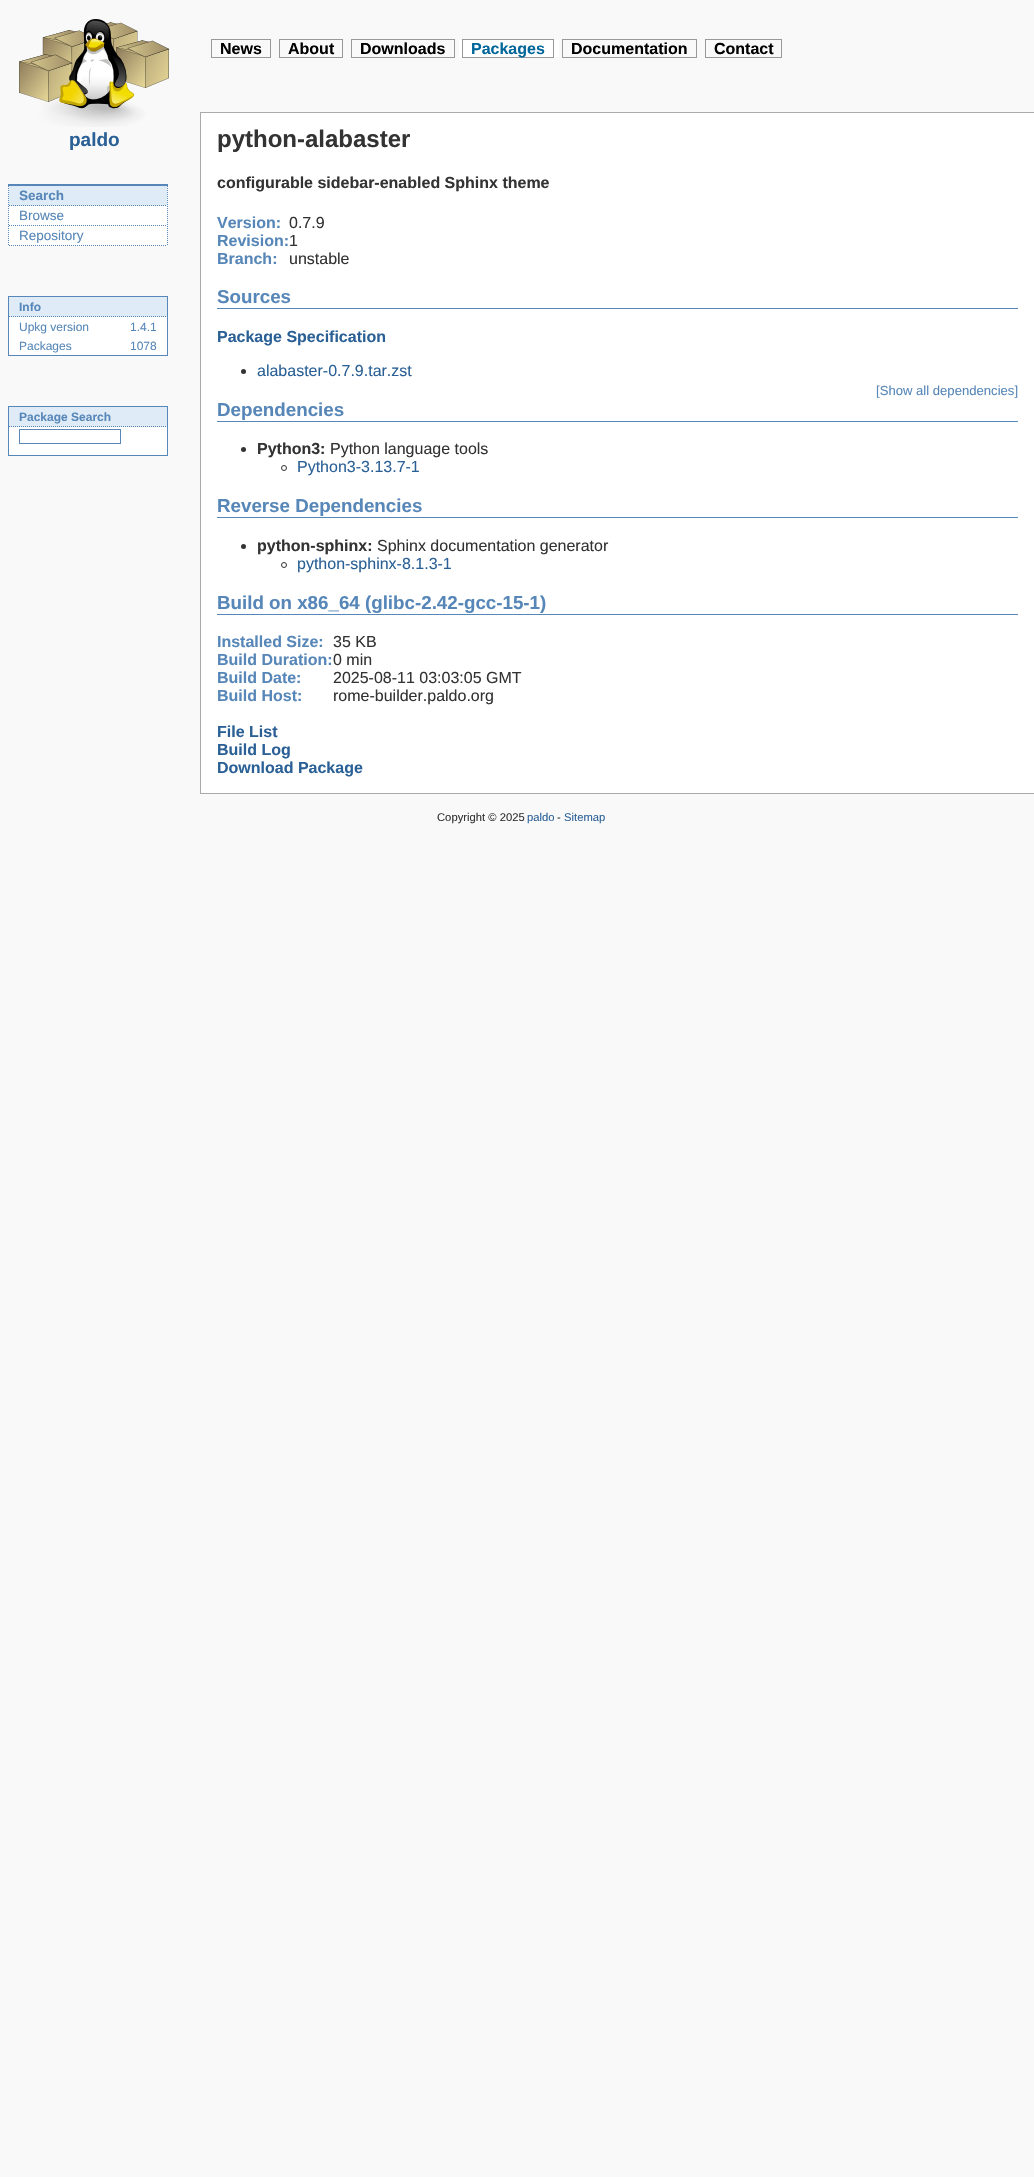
#include "include/core/SkBlurTypes.h"
#include "include/core/SkCanvas.h"
#include "include/core/SkData.h"
#include "include/core/SkFont.h"
#include "include/core/SkFontMgr.h"
#include "include/core/SkImage.h"
#include "include/core/SkMaskFilter.h"
#include "include/core/SkPaint.h"
#include "include/core/SkPathBuilder.h"
#include "include/core/SkTextBlob.h"
#include "include/effects/SkDashPathEffect.h"
#include "include/effects/SkGradientShader.h"
#include "include/utils/SkParsePath.h"

extern sk_sp<SkFontMgr> fontMgr;

static SkFont font(const char* family, int weight, float size, bool italic = false) {
    SkFontStyle style(weight, SkFontStyle::kNormal_Width,
        italic ? SkFontStyle::kItalic_Slant : SkFontStyle::kUpright_Slant);
    SkFont result(fontMgr->matchFamilyStyle(family, style), size);
    result.setSubpixel(true);
    return result;
}

static void drawLabel(SkCanvas* canvas, const char* s, float x, float y, const SkFont& font, SkColor color) {
    SkPaint ink(SkColor4f::FromColor(color));
    ink.setAntiAlias(true);
    canvas->drawString(s, x, y, font, ink);
}

static void fillRect(SkCanvas* canvas, float x, float y, float w, float h, SkColor color) {
    SkPaint ink(SkColor4f::FromColor(color));
    ink.setAntiAlias(true);
    canvas->drawRect(SkRect::MakeXYWH(x, y, w, h), ink);
}

static void drawPhoto(SkCanvas* canvas, const char* path, float x, float y, float w, float h) {
    auto image = SkImages::DeferredFromEncodedData(SkData::MakeFromFileName(path));
    canvas->drawImageRect(image, SkRect::MakeXYWH(x, y, w, h), SkSamplingOptions());
}

static SkPath parsePath(const char* data, bool evenOdd = false) {
    SkPath result = *SkParsePath::FromSVGString(data);
    if (evenOdd) result.setFillType(SkPathFillType::kEvenOdd);
    return result;
}

void draw(SkCanvas* canvas) {
    SkPaint paint;
    paint.setAntiAlias(true);
    canvas->clear(0xFFF9F9F9);
    paint.setStroke(true);
    paint.setStrokeWidth(1);
    paint.setColor(0xFF999999);
    canvas->drawRect(SkRect::MakeXYWH(211.5f, 39.5f, 59, 18), paint);
    SkFont font1 = font("Liberation Sans", 700, 16);
    drawLabel(canvas, "News", 220, 54, font1, 0xFF000000);
    canvas->drawRect(SkRect::MakeXYWH(279.5f, 39.5f, 63, 18), paint);
    drawLabel(canvas, "About", 288, 54, font1, 0xFF000000);
    canvas->drawRect(SkRect::MakeXYWH(351.5f, 39.5f, 103, 18), paint);
    drawLabel(canvas, "Downloads", 360, 54, font1, 0xFF000000);
    fillRect(canvas, 459, 40, 100, 17, 0xFFFFFFFF);
    canvas->drawRect(SkRect::MakeXYWH(462.5f, 39.5f, 91, 18), paint);
    drawLabel(canvas, "Packages", 471, 54, font1, 0xFF006699);
    canvas->drawRect(SkRect::MakeXYWH(562.5f, 39.5f, 134, 18), paint);
    drawLabel(canvas, "Documentation", 571, 54, font1, 0xFF000000);
    canvas->drawRect(SkRect::MakeXYWH(705.5f, 39.5f, 76, 18), paint);
    drawLabel(canvas, "Contact", 714, 54, font1, 0xFF000000);
    fillRect(canvas, 8, 187, 160, 59, 0xFFFFFFFF);
    fillRect(canvas, 8, 184, 160, 2, 0xFF5787B8);
    paint.setColor(0xFF5787B8);
    paint.setPathEffect(SkDashPathEffect::Make({{1, 1}}, 0));
    canvas->drawPath(parsePath("M167.5 184V246"), paint);
    paint.setPathEffect(nullptr);
    paint.setPathEffect(SkDashPathEffect::Make({{1, 1}}, 0));
    canvas->drawPath(parsePath("M8.5 184V246"), paint);
    paint.setPathEffect(nullptr);
    fillRect(canvas, 9, 186, 158, 20, 0xFFDFEBF7);
    paint.setPathEffect(SkDashPathEffect::Make({{1, 1}}, 0));
    canvas->drawPath(parsePath("M9 205.5H167"), paint);
    paint.setPathEffect(nullptr);
    SkFont font2 = font("Liberation Sans", 700, 13.5f);
    drawLabel(canvas, "Search", 19, 200, font2, 0xFF5787B8);
    paint.setPathEffect(SkDashPathEffect::Make({{1, 1}}, 0));
    canvas->drawPath(parsePath("M9 225.5H167"), paint);
    paint.setPathEffect(nullptr);
    SkFont font3 = font("Liberation Sans", 400, 13.5f);
    drawLabel(canvas, "Browse", 19, 220, font3, 0xFF5787B8);
    paint.setPathEffect(SkDashPathEffect::Make({{1, 1}}, 0));
    canvas->drawPath(parsePath("M9 245.5H167"), paint);
    paint.setPathEffect(nullptr);
    drawLabel(canvas, "Repository", 19, 240, font3, 0xFF5787B8);
    fillRect(canvas, 9, 317, 158, 38, 0xFFFFFFFF);
    canvas->drawRect(SkRect::MakeXYWH(8.5f, 296.5f, 159, 59), paint);
    fillRect(canvas, 9, 297, 158, 20, 0xFFDFEBF7);
    paint.setPathEffect(SkDashPathEffect::Make({{1, 1}}, 0));
    canvas->drawPath(parsePath("M9 316.5H167"), paint);
    paint.setPathEffect(nullptr);
    SkFont font4 = font("Liberation Sans", 700, 12);
    drawLabel(canvas, "Info", 19, 311, font4, 0xFF5787B8);
    SkFont font5 = font("Liberation Sans", 400, 12);
    drawLabel(canvas, "Upkg version", 19, 331, font5, 0xFF5787B8);
    drawLabel(canvas, "1.4.1", 130, 331, font5, 0xFF5787B8);
    drawLabel(canvas, "Packages", 19, 350, font5, 0xFF5787B8);
    drawLabel(canvas, "1078", 130, 350, font5, 0xFF5787B8);
    fillRect(canvas, 9, 427, 158, 28, 0xFFFFFFFF);
    canvas->drawRect(SkRect::MakeXYWH(8.5f, 406.5f, 159, 49), paint);
    fillRect(canvas, 9, 407, 158, 20, 0xFFDFEBF7);
    paint.setPathEffect(SkDashPathEffect::Make({{1, 1}}, 0));
    canvas->drawPath(parsePath("M9 426.5H167"), paint);
    paint.setPathEffect(nullptr);
    drawLabel(canvas, "Package Search", 19, 421, font4, 0xFF5787B8);
    canvas->drawRect(SkRect::MakeXYWH(19.5f, 429.5f, 101, 14), paint);
    fillRect(canvas, 201, 113, 833, 680, 0xFFFFFFFF);
    fillRect(canvas, 200, 112, 834, 1, 0xFFAAAAAA);
    fillRect(canvas, 200, 793, 834, 1, 0xFFAAAAAA);
    fillRect(canvas, 200, 112, 1, 682, 0xFFAAAAAA);
    SkFont font6 = font("Liberation Sans", 700, 24);
    drawLabel(canvas, "python-alabaster", 217, 147, font6, 0xFF333333);
    drawLabel(canvas, "configurable sidebar-enabled Sphinx theme", 217, 188, font1, 0xFF333333);
    drawLabel(canvas, "Version:", 217, 228, font1, 0xFF5787B8);
    SkFont font7 = font("Liberation Sans", 400, 16);
    drawLabel(canvas, "0.7.9", 289, 228, font7, 0xFF333333);
    drawLabel(canvas, "Revision:", 217, 246, font1, 0xFF5787B8);
    drawLabel(canvas, "1", 289, 246, font7, 0xFF333333);
    drawLabel(canvas, "Branch:", 217, 264, font1, 0xFF5787B8);
    drawLabel(canvas, "unstable", 289, 264, font7, 0xFF333333);
    fillRect(canvas, 217, 308, 801, 1, 0xFF5787B8);
    SkFont font8 = font("Liberation Sans", 700, 18.75f);
    drawLabel(canvas, "Sources", 217, 303, font8, 0xFF5787B8);
    drawLabel(canvas, "Package Specification", 217, 342, font1, 0xFF2A6096);
    paint.setStroke(false);
    paint.setColor(0xFF333333);
    canvas->drawCircle(243.5f, 371.5f, 2.5f, paint);
    drawLabel(canvas, "alabaster-0.7.9.tar.zst", 257, 376, font7, 0xFF2A6096);
    fillRect(canvas, 217, 421, 801, 1, 0xFF5787B8);
    SkFont font9 = font("Liberation Sans", 400, 13.1f);
    drawLabel(canvas, "[Show all dependencies]", 876, 395, font9, 0xFF5787B8);
    drawLabel(canvas, "Dependencies", 217, 416, font8, 0xFF5787B8);
    canvas->drawCircle(243.5f, 449.5f, 2.5f, paint);
    drawLabel(canvas, "Python3:", 257, 454, font1, 0xFF333333);
    drawLabel(canvas, "Python language tools", 330, 454, font7, 0xFF333333);
    paint.setStroke(true);
    canvas->drawCircle(284, 468, 2.5f, paint);
    drawLabel(canvas, "Python3-3.13.7-1", 297, 472, font7, 0xFF2A6096);
    fillRect(canvas, 217, 517, 801, 1, 0xFF5787B8);
    drawLabel(canvas, "Reverse Dependencies", 217, 512, font8, 0xFF5787B8);
    paint.setStroke(false);
    canvas->drawCircle(243.5f, 546.5f, 2.5f, paint);
    drawLabel(canvas, "python-sphinx:", 257, 551, font1, 0xFF333333);
    drawLabel(canvas, "Sphinx documentation generator", 377, 551, font7, 0xFF333333);
    paint.setStroke(true);
    canvas->drawCircle(284, 565, 2.5f, paint);
    drawLabel(canvas, "python-sphinx-8.1.3-1", 297, 569, font7, 0xFF2A6096);
    fillRect(canvas, 217, 614, 801, 1, 0xFF5787B8);
    drawLabel(canvas, "Build on x86_64 (glibc-2.42-gcc-15-1)", 217, 609, font8, 0xFF5787B8);
    drawLabel(canvas, "Installed Size:", 217, 647, font1, 0xFF5787B8);
    drawLabel(canvas, "35 KB", 333, 647, font7, 0xFF333333);
    drawLabel(canvas, "Build Duration:", 217, 665, font1, 0xFF5787B8);
    drawLabel(canvas, "0 min", 333, 665, font7, 0xFF333333);
    drawLabel(canvas, "Build Date:", 217, 683, font1, 0xFF5787B8);
    drawLabel(canvas, "2025-08-11 03:03:05 GMT", 333, 683, font7, 0xFF333333);
    drawLabel(canvas, "Build Host:", 217, 701, font1, 0xFF5787B8);
    drawLabel(canvas, "rome-builder.paldo.org", 333, 701, font7, 0xFF333333);
    drawLabel(canvas, "File List", 217, 737, font1, 0xFF2A6096);
    drawLabel(canvas, "Build Log", 217, 755, font1, 0xFF2A6096);
    drawLabel(canvas, "Download Package", 217, 773, font1, 0xFF2A6096);
    drawPhoto(canvas, "assets/img1.png", 19, 19, 150, 108);
    SkFont font10 = font("Liberation Sans", 700, 19);
    drawLabel(canvas, "paldo", 69, 146, font10, 0xFF2A6096);
    SkFont font11 = font("Liberation Sans", 400, 11.25f);
    drawLabel(canvas, "Copyright © 2025", 437, 821, font11, 0xFF333333);
    drawLabel(canvas, "paldo", 527, 821, font11, 0xFF2A6096);
    drawLabel(canvas, "-", 557, 821, font11, 0xFF333333);
    drawLabel(canvas, "Sitemap", 564, 821, font11, 0xFF2A6096);
}
